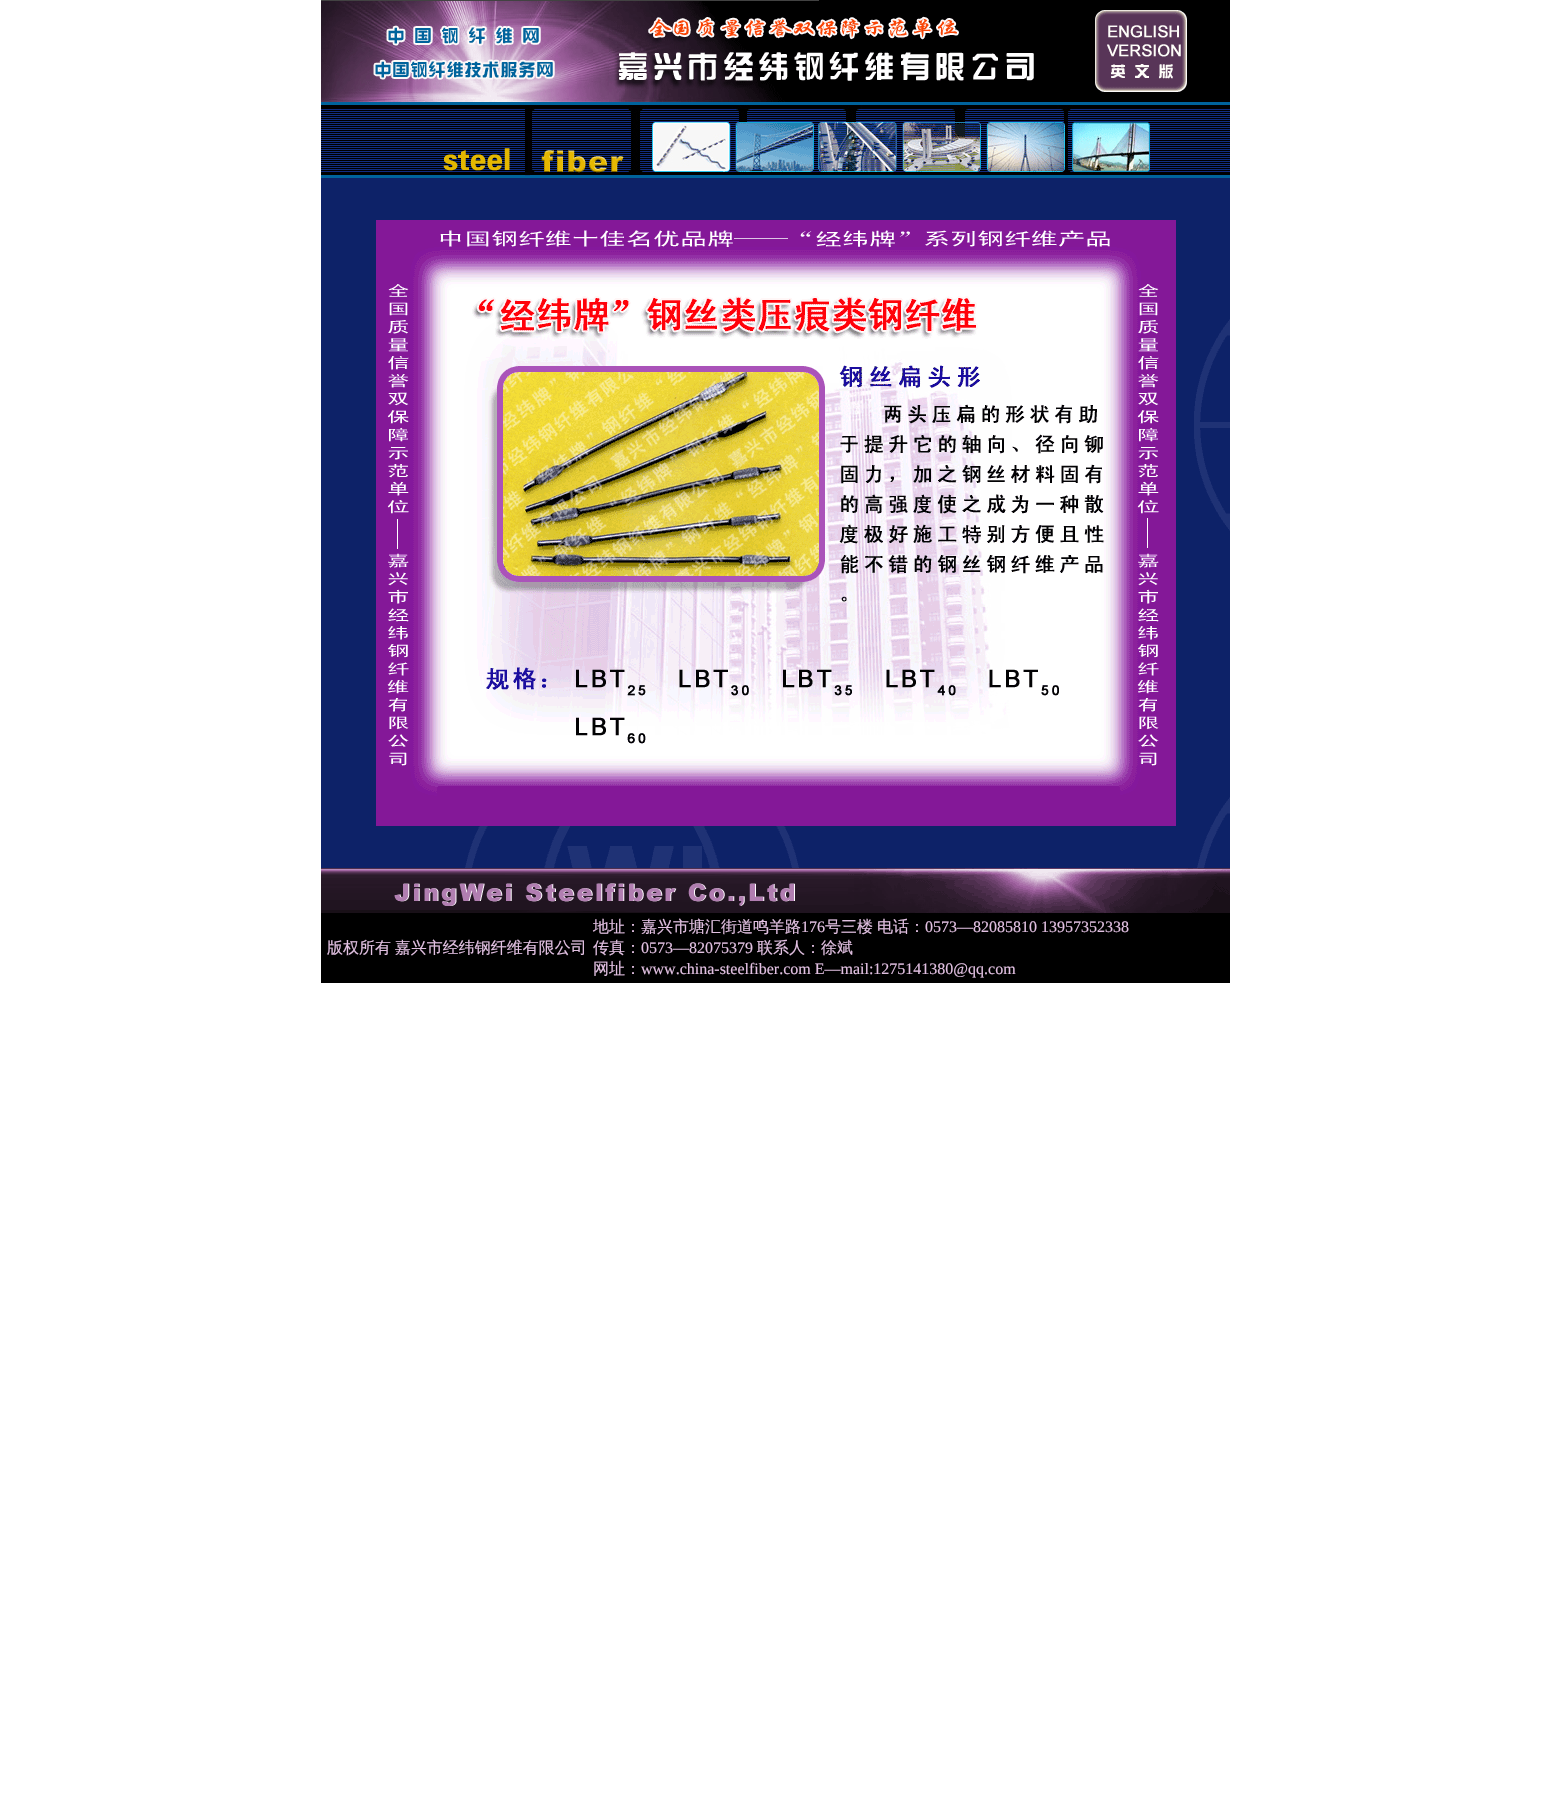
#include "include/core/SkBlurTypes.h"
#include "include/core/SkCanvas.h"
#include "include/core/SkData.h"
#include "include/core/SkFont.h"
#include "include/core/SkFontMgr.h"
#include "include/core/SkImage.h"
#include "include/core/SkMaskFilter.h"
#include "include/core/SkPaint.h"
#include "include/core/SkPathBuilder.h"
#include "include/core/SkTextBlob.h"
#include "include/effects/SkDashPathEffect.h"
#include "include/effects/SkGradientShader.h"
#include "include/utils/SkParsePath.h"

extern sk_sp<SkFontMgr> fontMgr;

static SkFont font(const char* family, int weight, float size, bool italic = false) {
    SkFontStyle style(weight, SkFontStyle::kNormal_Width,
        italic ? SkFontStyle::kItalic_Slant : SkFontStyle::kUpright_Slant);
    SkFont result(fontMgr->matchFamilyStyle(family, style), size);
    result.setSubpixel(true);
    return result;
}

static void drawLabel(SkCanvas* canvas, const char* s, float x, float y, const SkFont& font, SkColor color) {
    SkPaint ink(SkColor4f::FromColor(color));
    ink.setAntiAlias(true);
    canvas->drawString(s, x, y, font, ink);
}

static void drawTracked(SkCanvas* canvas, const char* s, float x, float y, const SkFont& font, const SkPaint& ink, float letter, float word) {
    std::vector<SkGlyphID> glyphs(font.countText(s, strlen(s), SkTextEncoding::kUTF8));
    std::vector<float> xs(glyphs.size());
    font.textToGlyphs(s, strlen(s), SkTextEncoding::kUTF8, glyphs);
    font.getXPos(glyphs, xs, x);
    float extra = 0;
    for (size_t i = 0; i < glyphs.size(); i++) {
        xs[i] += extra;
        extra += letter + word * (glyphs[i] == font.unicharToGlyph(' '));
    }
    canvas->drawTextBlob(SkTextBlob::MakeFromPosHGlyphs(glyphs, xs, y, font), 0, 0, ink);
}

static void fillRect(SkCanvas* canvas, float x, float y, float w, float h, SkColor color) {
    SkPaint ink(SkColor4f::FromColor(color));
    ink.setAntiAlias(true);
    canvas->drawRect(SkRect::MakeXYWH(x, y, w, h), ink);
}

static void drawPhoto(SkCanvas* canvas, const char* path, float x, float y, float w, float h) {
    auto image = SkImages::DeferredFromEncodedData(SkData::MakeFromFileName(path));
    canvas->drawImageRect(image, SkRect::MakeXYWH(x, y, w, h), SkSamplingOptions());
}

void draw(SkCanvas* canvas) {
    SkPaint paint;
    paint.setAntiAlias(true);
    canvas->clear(0xFFFFFFFF);
    drawPhoto(canvas, "assets/img1.png", 321, 0, 909, 102);
    drawPhoto(canvas, "assets/img2.png", 321, 102, 909, 76);
    drawPhoto(canvas, "assets/img3.png", 321, 178, 909, 690);
    drawPhoto(canvas, "assets/img4.png", 376, 220, 800, 606);
    drawPhoto(canvas, "assets/img5.png", 321, 868, 909, 45);
    fillRect(canvas, 321, 913, 909, 70, 0xFF000000);
    SkFont font1 = font("WenQuanYi Zen Hei", 500, 16);
    paint.setColor(0xFFE1C0E1);
    drawTracked(canvas, "版权所有 嘉兴市经纬钢纤维有限公司", 327, 953, font1, paint, 0, -1);
    drawLabel(canvas, "地址：嘉兴市塘汇街道鸣羊路", 593, 932, font1, 0xFFE1C0E1);
    SkFont font2 = font("Liberation Serif", 400, 16);
    drawLabel(canvas, "176", 801, 932, font2, 0xFFE1C0E1);
    drawLabel(canvas, "号三楼", 825, 932, font1, 0xFFE1C0E1);
    drawLabel(canvas, "电话：", 877, 932, font1, 0xFFE1C0E1);
    drawLabel(canvas, "0573—82085810 13957352338", 925, 932, font2, 0xFFE1C0E1);
    drawLabel(canvas, "传真：", 593, 953, font1, 0xFFE1C0E1);
    drawLabel(canvas, "0573—82075379", 641, 953, font2, 0xFFE1C0E1);
    drawLabel(canvas, "联系人：徐斌", 757, 953, font1, 0xFFE1C0E1);
    drawLabel(canvas, "网址：", 593, 974, font1, 0xFFE1C0E1);
    drawLabel(canvas, "www.china-steelfiber.com E—mail:1275141380@qq.com", 641, 974, font2, 0xFFE1C0E1);
}
